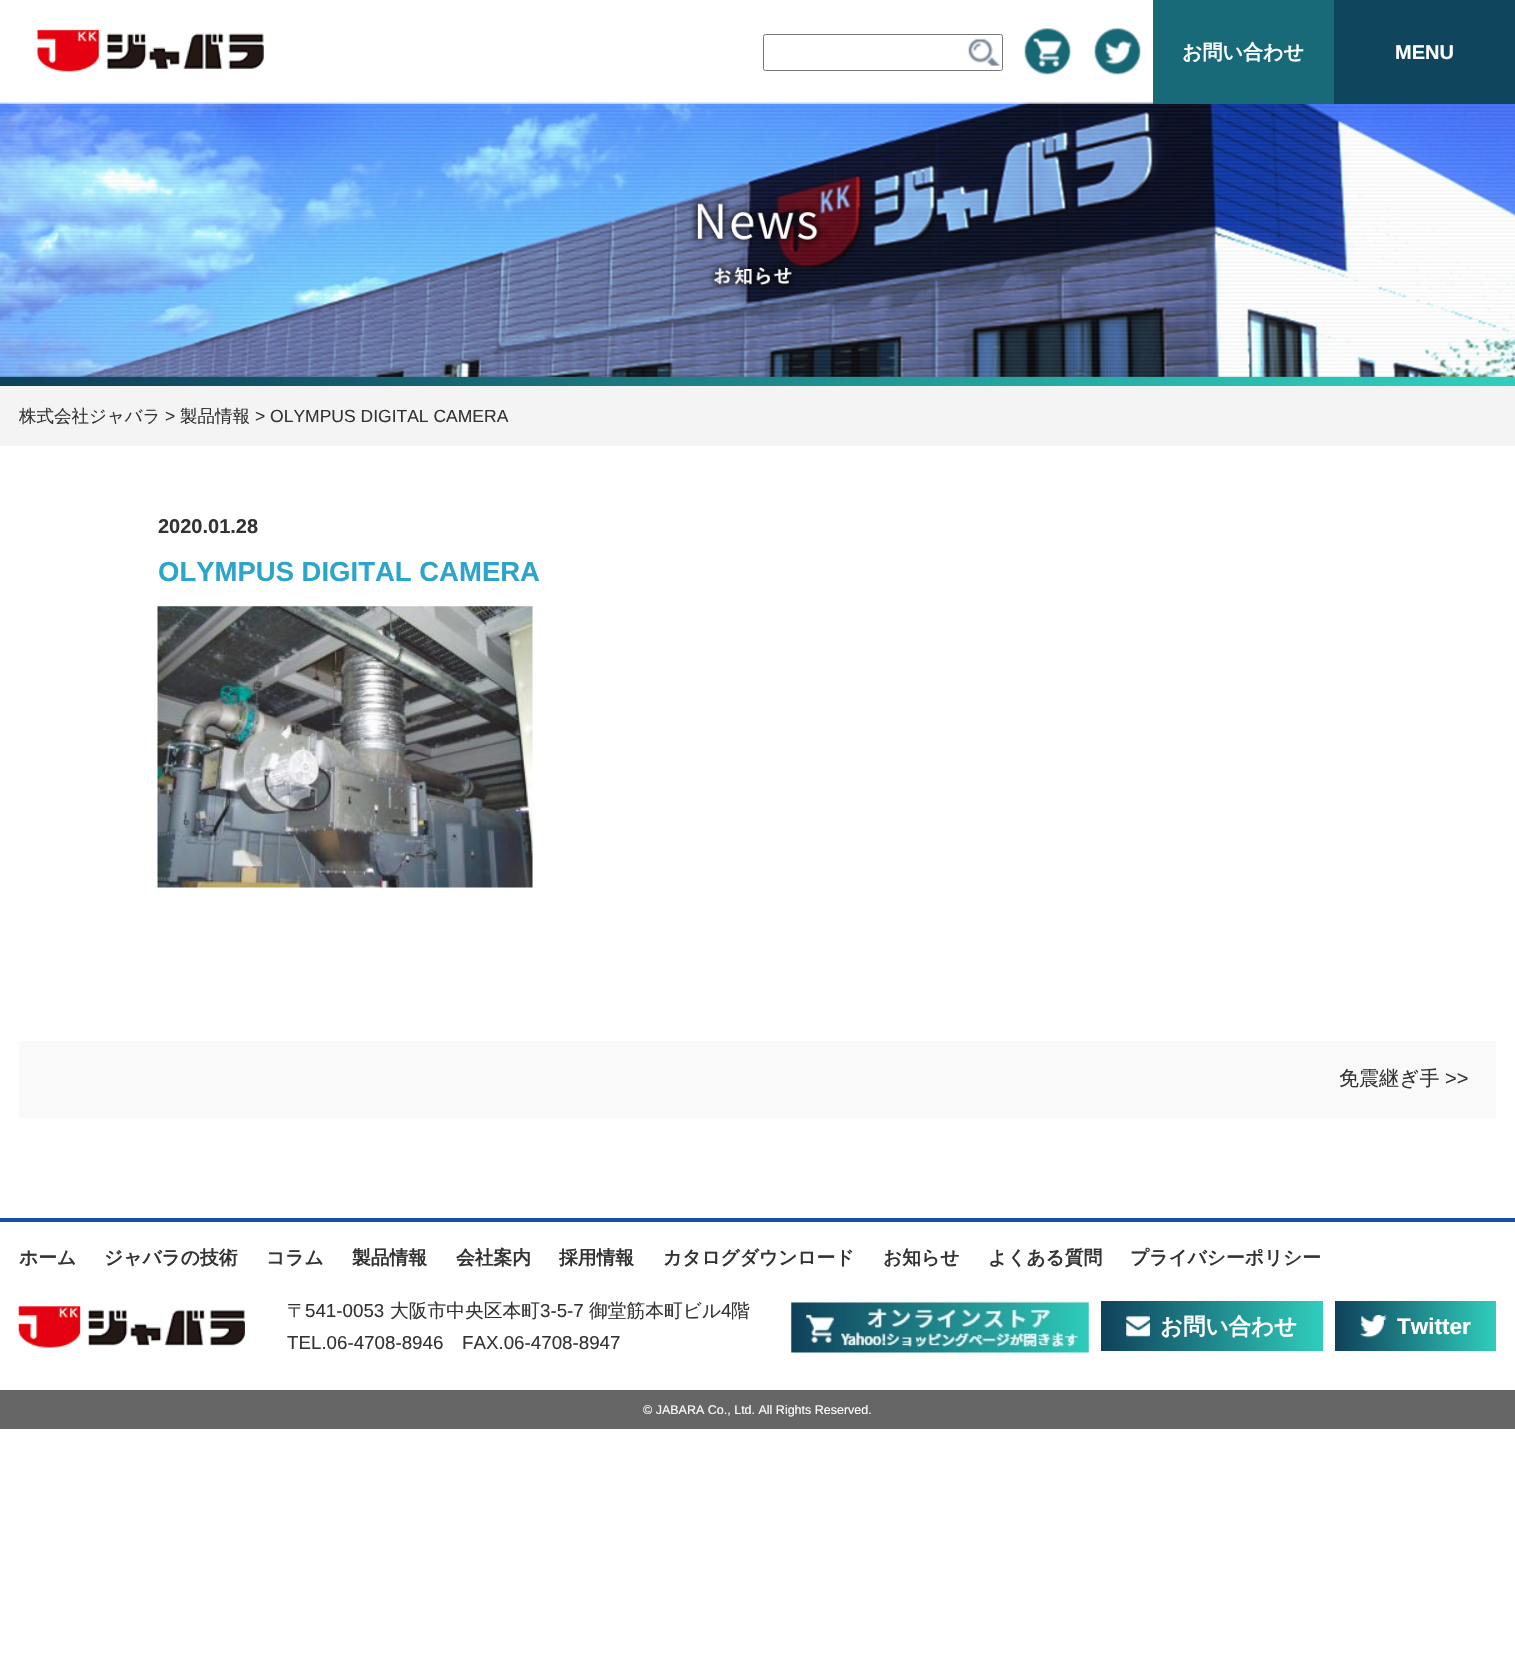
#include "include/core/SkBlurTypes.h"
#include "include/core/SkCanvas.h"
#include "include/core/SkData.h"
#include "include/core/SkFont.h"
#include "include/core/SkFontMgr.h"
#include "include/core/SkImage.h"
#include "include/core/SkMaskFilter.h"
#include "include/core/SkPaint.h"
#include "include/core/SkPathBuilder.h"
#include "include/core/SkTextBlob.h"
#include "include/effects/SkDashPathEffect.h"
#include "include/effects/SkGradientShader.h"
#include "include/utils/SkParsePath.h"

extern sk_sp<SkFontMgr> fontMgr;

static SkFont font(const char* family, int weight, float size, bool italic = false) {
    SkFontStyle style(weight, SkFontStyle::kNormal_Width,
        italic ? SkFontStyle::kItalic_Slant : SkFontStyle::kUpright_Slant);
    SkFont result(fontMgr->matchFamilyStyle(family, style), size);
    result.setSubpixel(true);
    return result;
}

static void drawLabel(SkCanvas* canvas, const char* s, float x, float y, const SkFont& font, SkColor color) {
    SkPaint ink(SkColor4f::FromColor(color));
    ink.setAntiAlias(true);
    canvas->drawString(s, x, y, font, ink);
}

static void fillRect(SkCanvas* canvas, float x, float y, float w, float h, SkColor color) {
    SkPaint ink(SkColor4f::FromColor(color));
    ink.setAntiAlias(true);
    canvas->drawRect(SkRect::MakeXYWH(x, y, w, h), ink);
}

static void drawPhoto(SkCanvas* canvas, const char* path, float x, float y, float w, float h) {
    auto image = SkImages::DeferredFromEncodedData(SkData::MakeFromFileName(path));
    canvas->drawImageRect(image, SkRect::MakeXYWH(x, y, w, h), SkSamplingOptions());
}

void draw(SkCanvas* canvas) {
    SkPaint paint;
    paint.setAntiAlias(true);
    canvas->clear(0xFFFFFFFF);
    drawPhoto(canvas, "assets/img5.png", 0, 102, 1515, 284);
    fillRect(canvas, 0, 102, 1153, 2, 0x99FFFFFF);
    drawPhoto(canvas, "assets/img1.png", 37, 29, 227, 43);
    paint.setStroke(true);
    paint.setStrokeWidth(1);
    paint.setColor(0xFF767676);
    canvas->drawRoundRect(SkRect::MakeXYWH(763.5f, 34.5f, 239, 36), 2, 2, paint);
    drawPhoto(canvas, "assets/img2.png", 968, 38, 33, 28);
    drawPhoto(canvas, "assets/img3.png", 1024, 28, 47, 47);
    drawPhoto(canvas, "assets/img4.png", 1094, 28, 47, 47);
    fillRect(canvas, 1153, 0, 181, 104, 0xFF186A78);
    SkFont font1 = font("WenQuanYi Zen Hei", 700, 20);
    drawLabel(canvas, "お問い合わせ", 1182, 59, font1, 0xFFFFFFFF);
    fillRect(canvas, 1334, 0, 181, 104, 0xFF10455E);
    SkFont font2 = font("Liberation Sans", 700, 20);
    drawLabel(canvas, "MENU", 1395, 59, font2, 0xFFFFFFFF);
    fillRect(canvas, 0, 386, 1515, 60, 0xFFF4F4F4);
    SkFont font3 = font("WenQuanYi Zen Hei", 500, 17.5f);
    drawLabel(canvas, "株式会社ジャバラ", 19, 422, font3, 0xFF333333);
    SkFont font4 = font("Liberation Sans", 400, 17.5f);
    drawLabel(canvas, ">", 165, 422, font4, 0xFF333333);
    drawLabel(canvas, "製品情報", 180, 422, font3, 0xFF333333);
    drawLabel(canvas, "> OLYMPUS DIGITAL CAMERA", 255, 422, font4, 0xFF333333);
    drawLabel(canvas, "2020.01.28", 158, 533, font2, 0xFF333333);
    SkFont font5 = font("Liberation Sans", 700, 27.5f);
    drawLabel(canvas, "OLYMPUS DIGITAL CAMERA", 158, 581, font5, 0xFF2DA4C9);
    drawPhoto(canvas, "assets/img6.png", 157, 606, 376, 282);
    fillRect(canvas, 19, 1041, 1477, 77, 0xFFF9F9F9);
    SkFont font6 = font("WenQuanYi Zen Hei", 500, 20);
    drawLabel(canvas, "免震継ぎ手", 1339, 1085, font6, 0xFF333333);
    SkFont font7 = font("Liberation Sans", 400, 20);
    drawLabel(canvas, ">>", 1445, 1085, font7, 0xFF333333);
    fillRect(canvas, 0, 1218, 1515, 4, 0xFF1350AB);
    SkFont font8 = font("WenQuanYi Zen Hei", 700, 18.75f);
    drawLabel(canvas, "ホーム", 19, 1264, font8, 0xFF333333);
    drawLabel(canvas, "ジャバラの技術", 104, 1264, font8, 0xFF333333);
    drawLabel(canvas, "コラム", 266, 1264, font8, 0xFF333333);
    drawLabel(canvas, "製品情報", 352, 1264, font8, 0xFF333333);
    drawLabel(canvas, "会社案内", 456, 1264, font8, 0xFF333333);
    drawLabel(canvas, "採用情報", 559, 1264, font8, 0xFF333333);
    drawLabel(canvas, "カタログダウンロード", 663, 1264, font8, 0xFF333333);
    drawLabel(canvas, "お知らせ", 883, 1264, font8, 0xFF333333);
    drawLabel(canvas, "よくある質問", 988, 1264, font8, 0xFF333333);
    drawLabel(canvas, "プライバシーポリシー", 1130, 1264, font8, 0xFF333333);
    drawPhoto(canvas, "assets/img7.png", 18, 1306, 227, 42);
    SkFont font9 = font("WenQuanYi Zen Hei", 500, 18.75f);
    drawLabel(canvas, "〒", 287, 1317, font9, 0xFF333333);
    SkFont font10 = font("Liberation Sans", 400, 18.75f);
    drawLabel(canvas, "541-0053", 305, 1317, font10, 0xFF333333);
    drawLabel(canvas, "大阪市中央区本町", 390, 1317, font9, 0xFF333333);
    drawLabel(canvas, "3-5-7", 540, 1317, font10, 0xFF333333);
    drawLabel(canvas, "御堂筋本町ビル", 589, 1317, font9, 0xFF333333);
    drawLabel(canvas, "4", 721, 1317, font10, 0xFF333333);
    drawLabel(canvas, "階", 731, 1317, font9, 0xFF333333);
    drawLabel(canvas, "TEL.06-4708-8946", 287, 1349, font10, 0xFF333333);
    drawLabel(canvas, "FAX.06-4708-8947", 462, 1349, font10, 0xFF333333);
    drawPhoto(canvas, "assets/img8.png", 791, 1301, 298, 52);
    paint.setStroke(false);
    {
        const SkColor colors[] = {0xFF0F415B, 0xFF30CDBC};
        const float stops[] = {0, 1};
        const SkPoint ends[] = {{1101, 1326}, {1323, 1326}};
        paint.setShader(SkGradientShader::MakeLinear(ends, colors, stops, 2, SkTileMode::kClamp));
        paint.setAlpha(255);
    }
    canvas->drawRect(SkRect::MakeXYWH(1101, 1301, 222, 50), paint);
    drawPhoto(canvas, "assets/img9.png", 1126, 1316, 24, 21);
    SkFont font11 = font("WenQuanYi Zen Hei", 700, 22.5f);
    drawLabel(canvas, "お問い合わせ", 1160, 1334, font11, 0xFFFFFFFF);
    {
        const SkColor colors[] = {0xFF0F415B, 0xFF30CDBC};
        const float stops[] = {0, 1};
        const SkPoint ends[] = {{1335, 1326}, {1496, 1326}};
        paint.setShader(SkGradientShader::MakeLinear(ends, colors, stops, 2, SkTileMode::kClamp));
        paint.setAlpha(255);
    }
    canvas->drawRect(SkRect::MakeXYWH(1335, 1301, 161, 50), paint);
    drawPhoto(canvas, "assets/img10.png", 1360, 1315, 28, 23);
    SkFont font12 = font("Liberation Sans", 700, 22.5f);
    drawLabel(canvas, "Twitter", 1397, 1334, font12, 0xFFFFFFFF);
    fillRect(canvas, 0, 1390, 1515, 39, 0xFF666666);
    SkFont font13 = font("Liberation Sans", 400, 12.5f);
    drawLabel(canvas, "© JABARA Co., Ltd. All Rights Reserved.", 643, 1414, font13, 0xFFFFFFFF);
}
